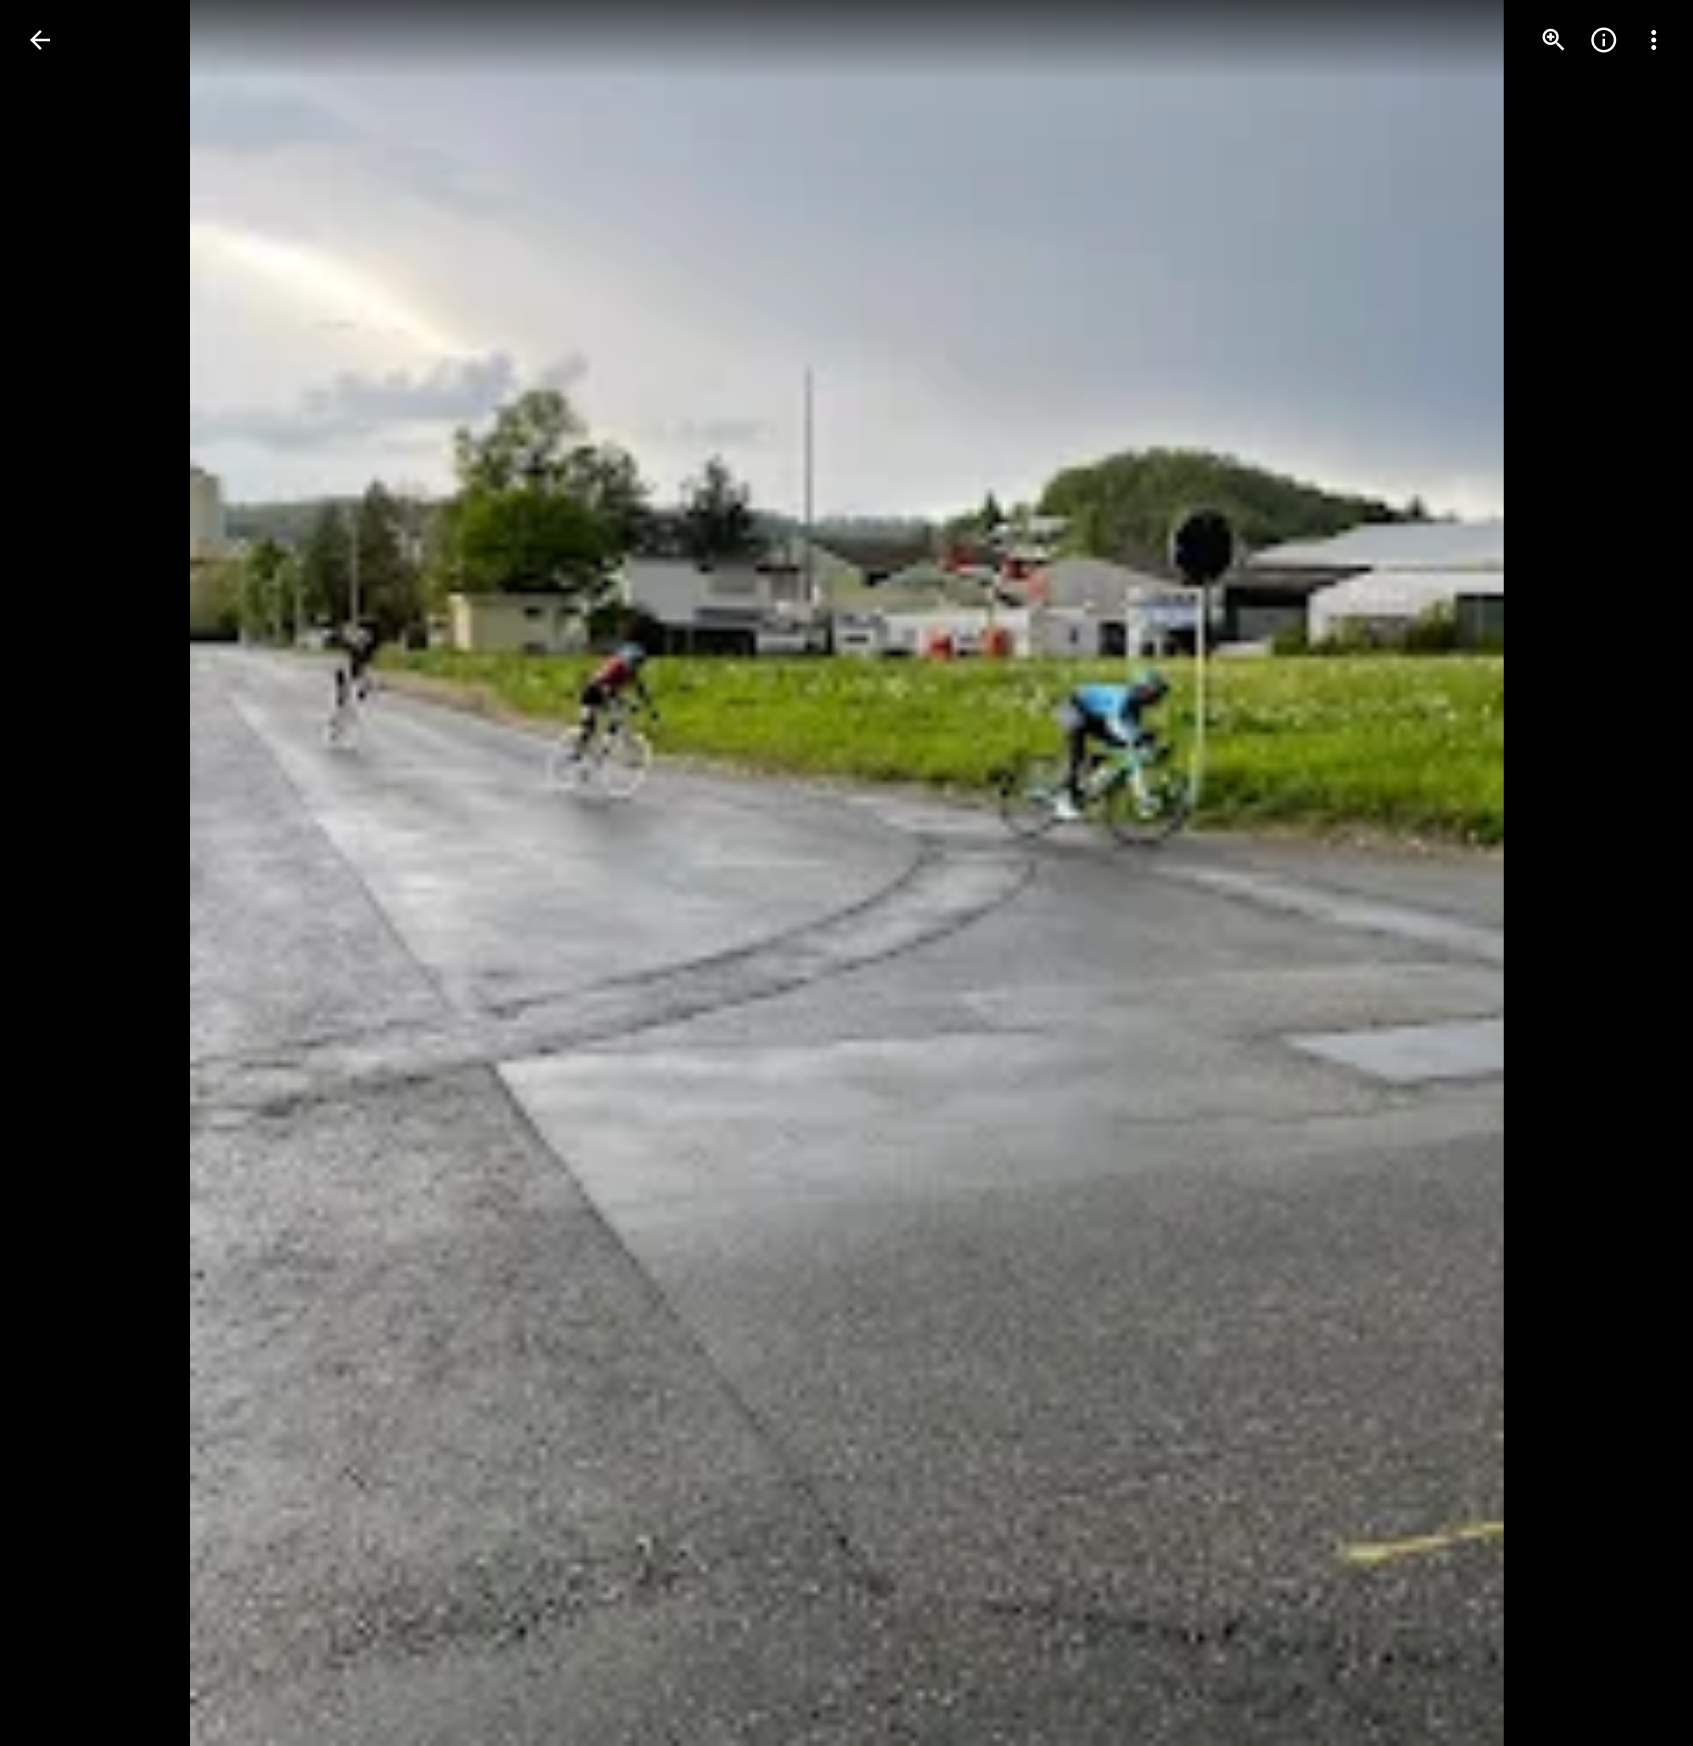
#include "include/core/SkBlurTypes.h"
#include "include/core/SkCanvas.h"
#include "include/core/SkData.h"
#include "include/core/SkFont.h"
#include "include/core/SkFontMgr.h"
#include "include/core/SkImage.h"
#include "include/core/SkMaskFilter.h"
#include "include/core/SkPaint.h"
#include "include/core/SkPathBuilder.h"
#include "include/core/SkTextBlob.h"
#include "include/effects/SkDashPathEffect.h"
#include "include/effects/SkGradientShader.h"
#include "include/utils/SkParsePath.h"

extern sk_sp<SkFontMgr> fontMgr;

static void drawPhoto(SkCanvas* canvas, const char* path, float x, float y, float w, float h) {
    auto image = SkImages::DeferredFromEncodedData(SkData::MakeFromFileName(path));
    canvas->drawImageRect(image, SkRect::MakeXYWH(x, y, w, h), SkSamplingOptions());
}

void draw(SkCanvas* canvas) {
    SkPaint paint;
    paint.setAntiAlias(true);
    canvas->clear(0xFF000000);
    drawPhoto(canvas, "assets/img5.png", 190, 0, 1314, 1746);
    {
        const SkColor colors[] = {0x99000000, 0x00000000};
        const float stops[] = {0, 1};
        const SkPoint ends[] = {{847, 0}, {847, 80}};
        paint.setShader(SkGradientShader::MakeLinear(ends, colors, stops, 2, SkTileMode::kClamp));
        paint.setAlpha(255);
    }
    canvas->drawRect(SkRect::MakeXYWH(190, 0, 1314, 77), paint);
    drawPhoto(canvas, "assets/img1.png", 30, 30, 20, 20);
    drawPhoto(canvas, "assets/img2.png", 1542, 28, 23, 23);
    drawPhoto(canvas, "assets/img3.png", 1591, 27, 26, 26);
    drawPhoto(canvas, "assets/img4.png", 1651, 30, 6, 20);
}
